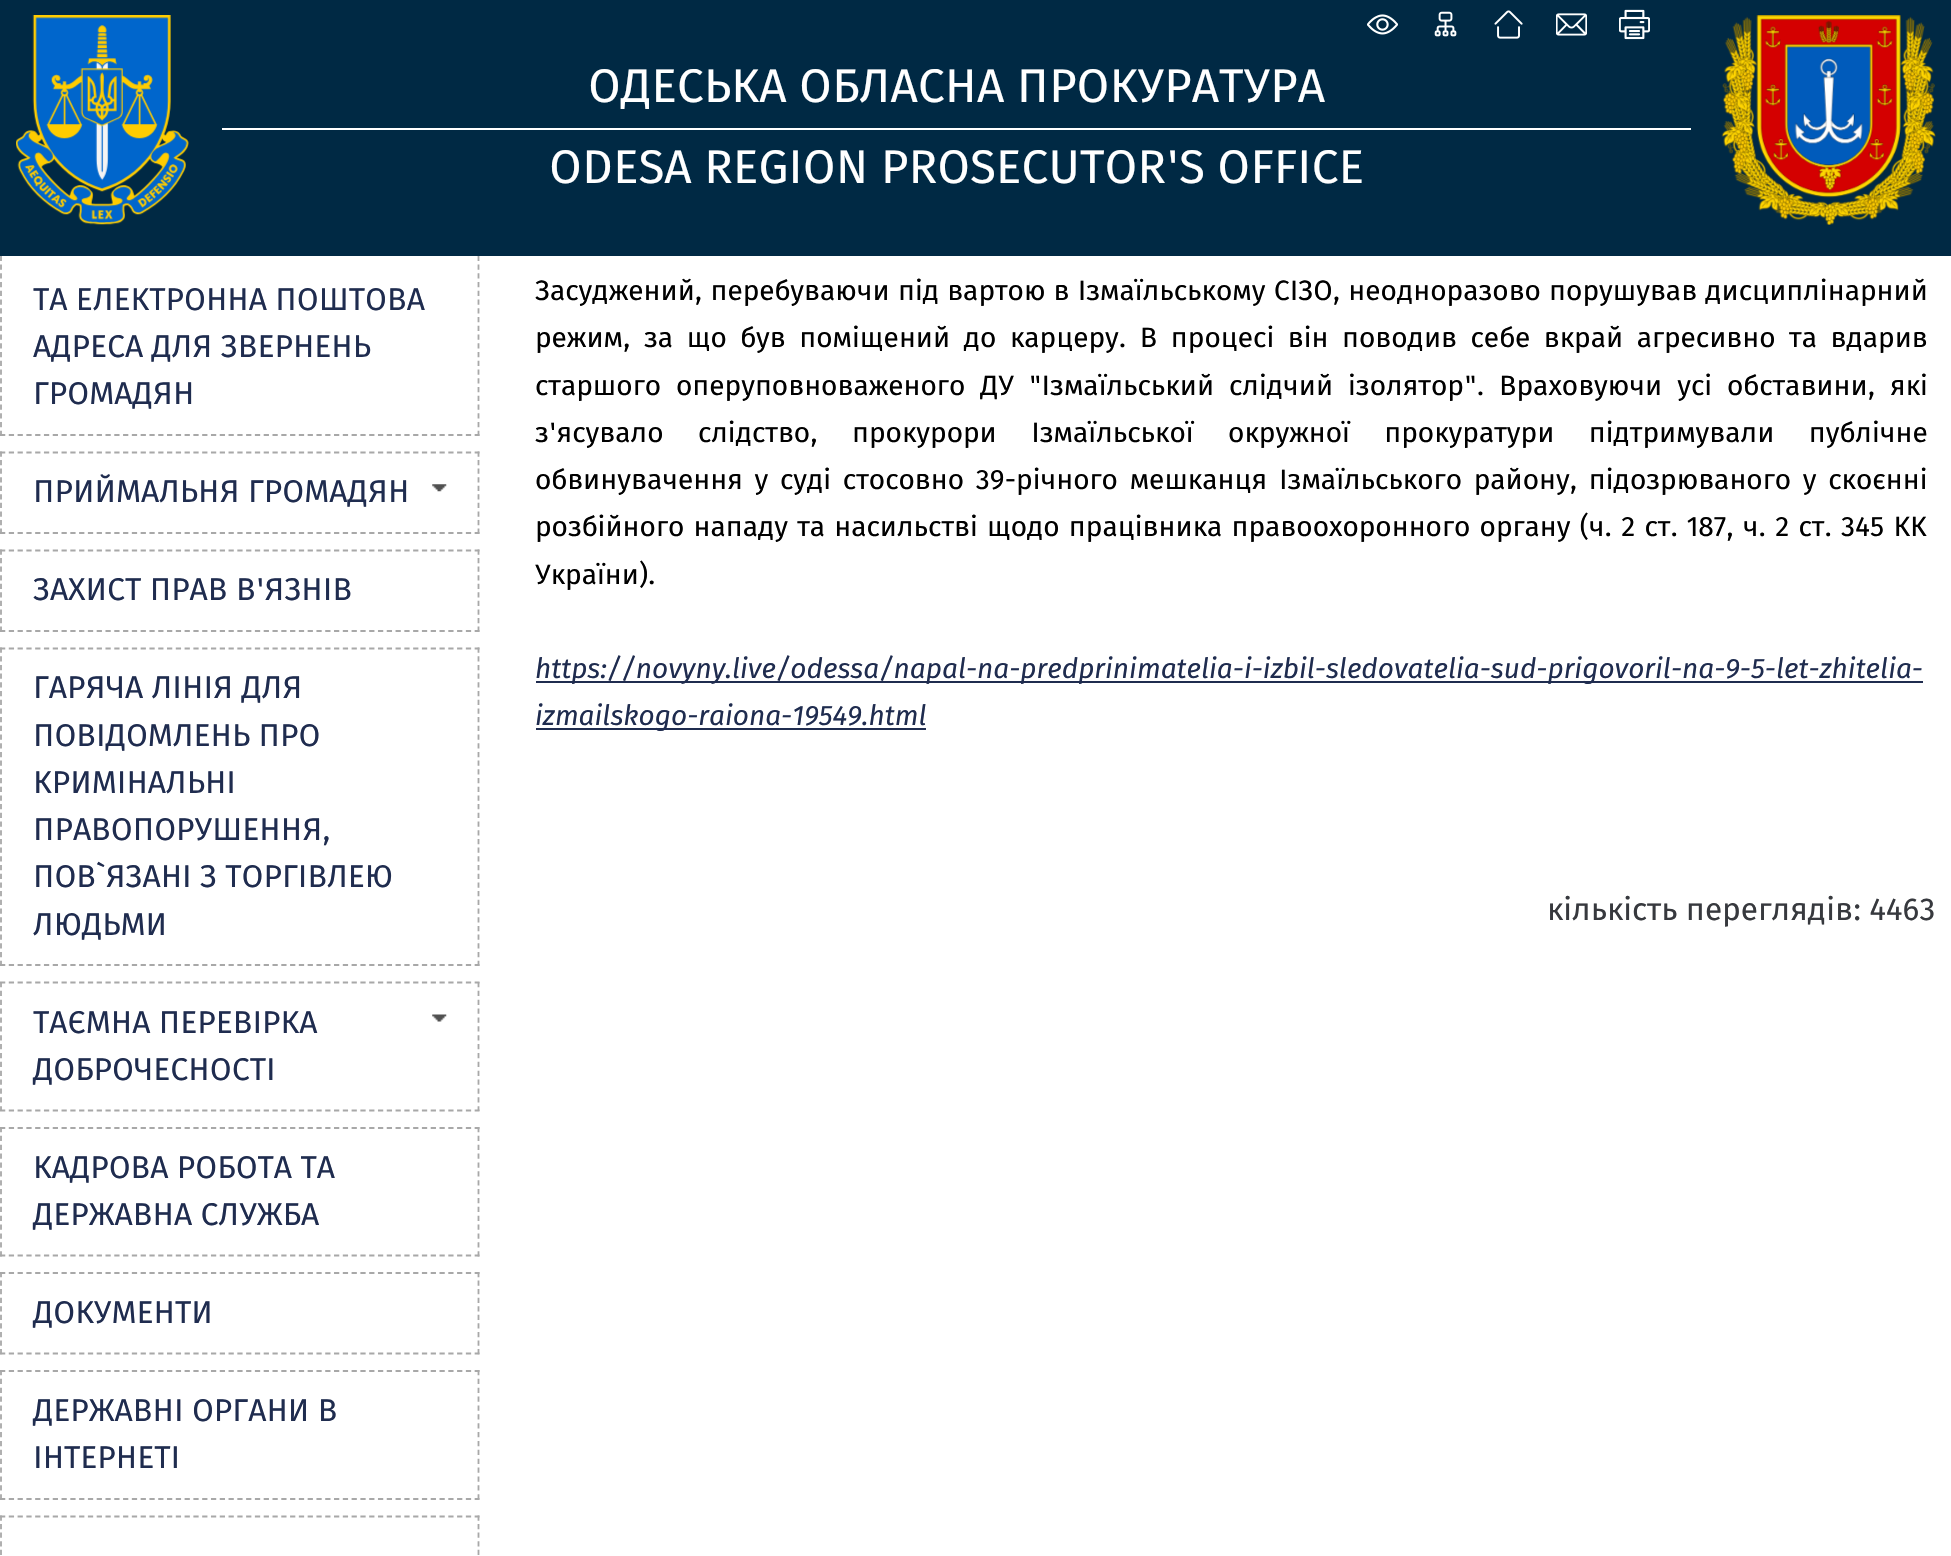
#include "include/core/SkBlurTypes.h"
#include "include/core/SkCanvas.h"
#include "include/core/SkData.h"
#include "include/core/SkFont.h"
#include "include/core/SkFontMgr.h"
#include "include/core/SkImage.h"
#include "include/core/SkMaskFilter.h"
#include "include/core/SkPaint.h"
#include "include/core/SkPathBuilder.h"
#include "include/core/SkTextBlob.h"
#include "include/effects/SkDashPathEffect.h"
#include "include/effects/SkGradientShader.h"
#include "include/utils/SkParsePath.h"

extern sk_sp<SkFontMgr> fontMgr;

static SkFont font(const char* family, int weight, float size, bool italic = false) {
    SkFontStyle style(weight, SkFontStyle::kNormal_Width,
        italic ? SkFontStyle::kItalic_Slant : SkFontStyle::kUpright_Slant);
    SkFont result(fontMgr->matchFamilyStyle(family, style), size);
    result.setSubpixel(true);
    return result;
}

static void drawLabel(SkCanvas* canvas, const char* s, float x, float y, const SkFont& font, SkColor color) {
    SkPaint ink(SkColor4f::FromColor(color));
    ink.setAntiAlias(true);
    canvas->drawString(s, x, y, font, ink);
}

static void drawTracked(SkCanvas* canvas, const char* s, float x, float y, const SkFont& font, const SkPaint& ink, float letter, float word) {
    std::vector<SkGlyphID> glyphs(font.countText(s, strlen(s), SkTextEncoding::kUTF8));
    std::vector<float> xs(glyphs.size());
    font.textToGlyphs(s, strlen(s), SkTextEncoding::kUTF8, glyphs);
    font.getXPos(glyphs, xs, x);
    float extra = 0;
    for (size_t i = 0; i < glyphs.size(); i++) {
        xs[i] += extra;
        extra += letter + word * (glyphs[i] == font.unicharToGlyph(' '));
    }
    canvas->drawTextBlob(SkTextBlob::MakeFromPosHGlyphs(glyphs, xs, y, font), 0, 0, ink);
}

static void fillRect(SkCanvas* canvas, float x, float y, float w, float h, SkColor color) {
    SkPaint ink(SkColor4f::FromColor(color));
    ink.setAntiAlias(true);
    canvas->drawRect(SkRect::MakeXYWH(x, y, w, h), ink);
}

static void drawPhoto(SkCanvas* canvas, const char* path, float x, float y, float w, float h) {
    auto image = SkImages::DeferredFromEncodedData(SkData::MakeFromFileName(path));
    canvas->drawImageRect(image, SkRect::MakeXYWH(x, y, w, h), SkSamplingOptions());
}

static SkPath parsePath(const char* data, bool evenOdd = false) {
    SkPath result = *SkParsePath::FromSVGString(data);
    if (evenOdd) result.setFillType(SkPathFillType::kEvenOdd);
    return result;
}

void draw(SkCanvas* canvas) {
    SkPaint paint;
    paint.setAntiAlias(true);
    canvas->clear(0xFFFFFFFF);
    paint.setStroke(true);
    paint.setStrokeWidth(1.8f);
    paint.setColor(0xFFA8A8A8);
    paint.setPathEffect(SkDashPathEffect::Make({{5.25f, 3.5f}}, 0));
    canvas->drawPath(parsePath("M478.5 212V436"), paint);
    paint.setPathEffect(nullptr);
    paint.setPathEffect(SkDashPathEffect::Make({{5.25f, 3.54f}}, 0));
    canvas->drawPath(parsePath("M0 435H479.5"), paint);
    paint.setPathEffect(nullptr);
    paint.setPathEffect(SkDashPathEffect::Make({{5.25f, 3.5f}}, 0));
    canvas->drawPath(parsePath("M1 212V436"), paint);
    paint.setPathEffect(nullptr);
    fillRect(canvas, 0, 0, 1951, 256, 0xFF002944);
    drawPhoto(canvas, "assets/img1.png", 16, 15, 173, 210);
    fillRect(canvas, 222, 128, 1469, 2, 0xFFFFFFFF);
    SkFont font1 = font("Fira Sans", 400, 47.25f);
    drawLabel(canvas, "ОДЕСЬКА ОБЛАСНА ПРОКУРАТУРА", 588, 102, font1, 0xFFFFFFFF);
    drawLabel(canvas, "ODESA REGION PROSECUTOR'S OFFICE", 549, 183, font1, 0xFFFFFFFF);
    drawPhoto(canvas, "assets/img2.png", 1367, 14, 31, 21);
    drawPhoto(canvas, "assets/img3.png", 1434, 11, 23, 26);
    drawPhoto(canvas, "assets/img4.png", 1494, 10, 29, 29);
    drawPhoto(canvas, "assets/img5.png", 1556, 13, 31, 23);
    drawPhoto(canvas, "assets/img6.png", 1619, 9, 31, 31);
    drawPhoto(canvas, "assets/img7.png", 1721, 15, 215, 210);
    SkFont font2 = font("Fira Sans", 400, 31.5f);
    drawLabel(canvas, "ТА ЕЛЕКТРОННА ПОШТОВА", 33, 310, font2, 0xFF1F2C4F);
    drawLabel(canvas, "АДРЕСА ДЛЯ ЗВЕРНЕНЬ", 33, 357, font2, 0xFF1F2C4F);
    drawLabel(canvas, "ГРОМАДЯН", 33, 404, font2, 0xFF1F2C4F);
    paint.setPathEffect(SkDashPathEffect::Make({{5.25f, 3.54f}}, 0));
    canvas->drawPath(parsePath("M0 452.5H479.5"), paint);
    paint.setPathEffect(nullptr);
    paint.setPathEffect(SkDashPathEffect::Make({{5.25f, 3.31f}}, 0));
    canvas->drawPath(parsePath("M478.5 451.5V534"), paint);
    paint.setPathEffect(nullptr);
    paint.setPathEffect(SkDashPathEffect::Make({{5.25f, 3.54f}}, 0));
    canvas->drawPath(parsePath("M0 533H479.5"), paint);
    paint.setPathEffect(nullptr);
    paint.setPathEffect(SkDashPathEffect::Make({{5.25f, 3.31f}}, 0));
    canvas->drawPath(parsePath("M1 451.5V534"), paint);
    paint.setPathEffect(nullptr);
    drawLabel(canvas, "ПРИЙМАЛЬНЯ ГРОМАДЯН", 33, 502, font2, 0xFF1F2C4F);
    drawPhoto(canvas, "assets/img8.png", 432, 484, 15, 8);
    paint.setPathEffect(SkDashPathEffect::Make({{5.25f, 3.54f}}, 0));
    canvas->drawPath(parsePath("M0 550.5H479.5"), paint);
    paint.setPathEffect(nullptr);
    paint.setPathEffect(SkDashPathEffect::Make({{5.25f, 3.31f}}, 0));
    canvas->drawPath(parsePath("M478.5 549.5V632"), paint);
    paint.setPathEffect(nullptr);
    paint.setPathEffect(SkDashPathEffect::Make({{5.25f, 3.54f}}, 0));
    canvas->drawPath(parsePath("M0 631H479.5"), paint);
    paint.setPathEffect(nullptr);
    paint.setPathEffect(SkDashPathEffect::Make({{5.25f, 3.31f}}, 0));
    canvas->drawPath(parsePath("M1 549.5V632"), paint);
    paint.setPathEffect(nullptr);
    drawLabel(canvas, "ЗАХИСТ ПРАВ В'ЯЗНІВ", 33, 600, font2, 0xFF1F2C4F);
    paint.setPathEffect(SkDashPathEffect::Make({{5.25f, 3.54f}}, 0));
    canvas->drawPath(parsePath("M0 648.5H479.5"), paint);
    paint.setPathEffect(nullptr);
    paint.setPathEffect(SkDashPathEffect::Make({{5.25f, 3.45f}}, 0));
    canvas->drawPath(parsePath("M478.5 647.5V966"), paint);
    paint.setPathEffect(nullptr);
    paint.setPathEffect(SkDashPathEffect::Make({{5.25f, 3.54f}}, 0));
    canvas->drawPath(parsePath("M0 965H479.5"), paint);
    paint.setPathEffect(nullptr);
    paint.setPathEffect(SkDashPathEffect::Make({{5.25f, 3.45f}}, 0));
    canvas->drawPath(parsePath("M1 647.5V966"), paint);
    paint.setPathEffect(nullptr);
    drawLabel(canvas, "ГАРЯЧА ЛІНІЯ ДЛЯ", 33, 698, font2, 0xFF1F2C4F);
    drawLabel(canvas, "ПОВІДОМЛЕНЬ ПРО", 33, 746, font2, 0xFF1F2C4F);
    drawLabel(canvas, "КРИМІНАЛЬНІ", 33, 793, font2, 0xFF1F2C4F);
    drawLabel(canvas, "ПРАВОПОРУШЕННЯ,", 33, 840, font2, 0xFF1F2C4F);
    drawLabel(canvas, "ПОВ`ЯЗАНІ З ТОРГІВЛЕЮ", 33, 887, font2, 0xFF1F2C4F);
    drawLabel(canvas, "ЛЮДЬМИ", 33, 935, font2, 0xFF1F2C4F);
    paint.setPathEffect(SkDashPathEffect::Make({{5.25f, 3.54f}}, 0));
    canvas->drawPath(parsePath("M0 982.5H479.5"), paint);
    paint.setPathEffect(nullptr);
    paint.setPathEffect(SkDashPathEffect::Make({{5.25f, 3.62f}}, 0));
    canvas->drawPath(parsePath("M478.5 982V1111"), paint);
    paint.setPathEffect(nullptr);
    paint.setPathEffect(SkDashPathEffect::Make({{5.25f, 3.54f}}, 0));
    canvas->drawPath(parsePath("M0 1110.5H479.5"), paint);
    paint.setPathEffect(nullptr);
    paint.setPathEffect(SkDashPathEffect::Make({{5.25f, 3.62f}}, 0));
    canvas->drawPath(parsePath("M1 982V1111"), paint);
    paint.setPathEffect(nullptr);
    drawLabel(canvas, "ТАЄМНА ПЕРЕВІРКА", 33, 1033, font2, 0xFF1F2C4F);
    drawLabel(canvas, "ДОБРОЧЕСНОСТІ", 33, 1080, font2, 0xFF1F2C4F);
    drawPhoto(canvas, "assets/img9.png", 432, 1014, 15, 8);
    paint.setPathEffect(SkDashPathEffect::Make({{5.25f, 3.54f}}, 0));
    canvas->drawPath(parsePath("M0 1128H479.5"), paint);
    paint.setPathEffect(nullptr);
    paint.setPathEffect(SkDashPathEffect::Make({{5.25f, 3.62f}}, 0));
    canvas->drawPath(parsePath("M478.5 1127V1256.5"), paint);
    paint.setPathEffect(nullptr);
    paint.setPathEffect(SkDashPathEffect::Make({{5.25f, 3.54f}}, 0));
    canvas->drawPath(parsePath("M0 1255.5H479.5"), paint);
    paint.setPathEffect(nullptr);
    paint.setPathEffect(SkDashPathEffect::Make({{5.25f, 3.62f}}, 0));
    canvas->drawPath(parsePath("M1 1127V1256.5"), paint);
    paint.setPathEffect(nullptr);
    drawLabel(canvas, "КАДРОВА РОБОТА ТА", 33, 1178, font2, 0xFF1F2C4F);
    drawLabel(canvas, "ДЕРЖАВНА СЛУЖБА", 33, 1225, font2, 0xFF1F2C4F);
    paint.setPathEffect(SkDashPathEffect::Make({{5.25f, 3.54f}}, 0));
    canvas->drawPath(parsePath("M0 1273H479.5"), paint);
    paint.setPathEffect(nullptr);
    paint.setPathEffect(SkDashPathEffect::Make({{5.25f, 3.31f}}, 0));
    canvas->drawPath(parsePath("M478.5 1272V1354.5"), paint);
    paint.setPathEffect(nullptr);
    paint.setPathEffect(SkDashPathEffect::Make({{5.25f, 3.54f}}, 0));
    canvas->drawPath(parsePath("M0 1353.5H479.5"), paint);
    paint.setPathEffect(nullptr);
    paint.setPathEffect(SkDashPathEffect::Make({{5.25f, 3.31f}}, 0));
    canvas->drawPath(parsePath("M1 1272V1354.5"), paint);
    paint.setPathEffect(nullptr);
    drawLabel(canvas, "ДОКУМЕНТИ", 33, 1323, font2, 0xFF1F2C4F);
    paint.setPathEffect(SkDashPathEffect::Make({{5.25f, 3.54f}}, 0));
    canvas->drawPath(parsePath("M0 1371H479.5"), paint);
    paint.setPathEffect(nullptr);
    paint.setPathEffect(SkDashPathEffect::Make({{5.25f, 3.62f}}, 0));
    canvas->drawPath(parsePath("M478.5 1370V1500"), paint);
    paint.setPathEffect(nullptr);
    paint.setPathEffect(SkDashPathEffect::Make({{5.25f, 3.54f}}, 0));
    canvas->drawPath(parsePath("M0 1499H479.5"), paint);
    paint.setPathEffect(nullptr);
    paint.setPathEffect(SkDashPathEffect::Make({{5.25f, 3.62f}}, 0));
    canvas->drawPath(parsePath("M1 1370V1500"), paint);
    paint.setPathEffect(nullptr);
    drawLabel(canvas, "ДЕРЖАВНІ ОРГАНИ В", 33, 1421, font2, 0xFF1F2C4F);
    drawLabel(canvas, "ІНТЕРНЕТІ", 33, 1468, font2, 0xFF1F2C4F);
    paint.setPathEffect(SkDashPathEffect::Make({{5.25f, 3.54f}}, 0));
    canvas->drawPath(parsePath("M0 1516.5H479.5"), paint);
    paint.setPathEffect(nullptr);
    paint.setPathEffect(SkDashPathEffect::Make({{5.25f, 3.31f}}, 0));
    canvas->drawPath(parsePath("M478.5 1515.5V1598"), paint);
    paint.setPathEffect(nullptr);
    paint.setPathEffect(SkDashPathEffect::Make({{5.25f, 3.31f}}, 0));
    canvas->drawPath(parsePath("M1 1515.5V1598"), paint);
    paint.setPathEffect(nullptr);
    SkFont font3 = font("Fira Sans", 400, 28);
    paint.setStroke(false);
    paint.setColor(0xFF000000);
    drawTracked(canvas, "Засуджений, перебуваючи під вартою в Ізмаїльському СІЗО, неодноразово порушував дисциплінарний", 535, 300, font3, paint, 0, 0.75f);
    drawTracked(canvas, "режим, за що був поміщений до карцеру. В процесі він поводив себе вкрай агресивно та вдарив", 535, 347, font3, paint, 0, 6.1f);
    drawTracked(canvas, "старшого оперуповноваженого ДУ \"Ізмаїльський слідчий ізолятор\". Враховуючи усі обставини, які", 535, 395, font3, paint, 0, 7.5f);
    drawTracked(canvas, "з'ясувало слідство, прокурори Ізмаїльської окружної прокуратури підтримували публічне", 535, 442, font3, paint, 0, 27);
    drawTracked(canvas, "обвинувачення у суді стосовно 39-річного мешканця Ізмаїльського району, підозрюваного у скоєнні", 535, 489, font3, paint, 0, 4.25f);
    drawTracked(canvas, "розбійного нападу та насильстві щодо працівника правоохоронного органу (ч. 2 ст. 187, ч. 2 ст. 345 КК", 535, 536, font3, paint, 0, 1.75f);
    drawLabel(canvas, "України).", 535, 584, font3, 0xFF000000);
    fillRect(canvas, 536, 681, 1387, 2, 0xFF1F2C4F);
    SkFont font4 = font("Fira Sans", 400, 28, true);
    drawLabel(canvas, "https://novyny.live/odessa/napal-na-predprinimatelia-i-izbil-sledovatelia-sud-prigovoril-na-9-5-let-zhitelia-", 535, 678, font4, 0xFF1F2C4F);
    fillRect(canvas, 536, 728, 390, 2, 0xFF1F2C4F);
    drawLabel(canvas, "izmailskogo-raiona-19549.html", 535, 725, font4, 0xFF1F2C4F);
    drawLabel(canvas, "кількість переглядів: 4463", 1547, 920, font2, 0xFF37393E);
}
